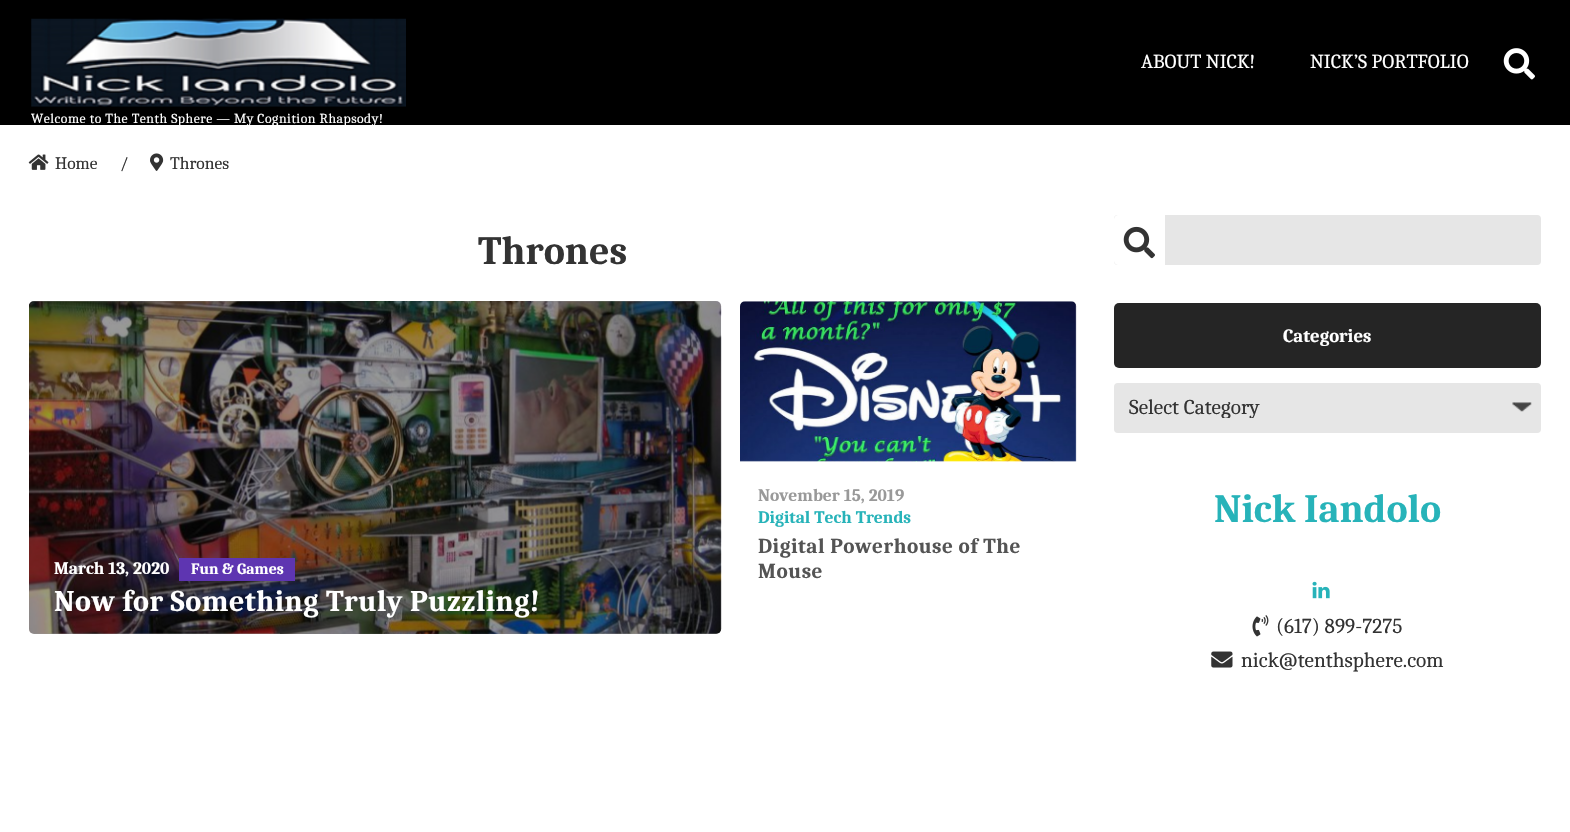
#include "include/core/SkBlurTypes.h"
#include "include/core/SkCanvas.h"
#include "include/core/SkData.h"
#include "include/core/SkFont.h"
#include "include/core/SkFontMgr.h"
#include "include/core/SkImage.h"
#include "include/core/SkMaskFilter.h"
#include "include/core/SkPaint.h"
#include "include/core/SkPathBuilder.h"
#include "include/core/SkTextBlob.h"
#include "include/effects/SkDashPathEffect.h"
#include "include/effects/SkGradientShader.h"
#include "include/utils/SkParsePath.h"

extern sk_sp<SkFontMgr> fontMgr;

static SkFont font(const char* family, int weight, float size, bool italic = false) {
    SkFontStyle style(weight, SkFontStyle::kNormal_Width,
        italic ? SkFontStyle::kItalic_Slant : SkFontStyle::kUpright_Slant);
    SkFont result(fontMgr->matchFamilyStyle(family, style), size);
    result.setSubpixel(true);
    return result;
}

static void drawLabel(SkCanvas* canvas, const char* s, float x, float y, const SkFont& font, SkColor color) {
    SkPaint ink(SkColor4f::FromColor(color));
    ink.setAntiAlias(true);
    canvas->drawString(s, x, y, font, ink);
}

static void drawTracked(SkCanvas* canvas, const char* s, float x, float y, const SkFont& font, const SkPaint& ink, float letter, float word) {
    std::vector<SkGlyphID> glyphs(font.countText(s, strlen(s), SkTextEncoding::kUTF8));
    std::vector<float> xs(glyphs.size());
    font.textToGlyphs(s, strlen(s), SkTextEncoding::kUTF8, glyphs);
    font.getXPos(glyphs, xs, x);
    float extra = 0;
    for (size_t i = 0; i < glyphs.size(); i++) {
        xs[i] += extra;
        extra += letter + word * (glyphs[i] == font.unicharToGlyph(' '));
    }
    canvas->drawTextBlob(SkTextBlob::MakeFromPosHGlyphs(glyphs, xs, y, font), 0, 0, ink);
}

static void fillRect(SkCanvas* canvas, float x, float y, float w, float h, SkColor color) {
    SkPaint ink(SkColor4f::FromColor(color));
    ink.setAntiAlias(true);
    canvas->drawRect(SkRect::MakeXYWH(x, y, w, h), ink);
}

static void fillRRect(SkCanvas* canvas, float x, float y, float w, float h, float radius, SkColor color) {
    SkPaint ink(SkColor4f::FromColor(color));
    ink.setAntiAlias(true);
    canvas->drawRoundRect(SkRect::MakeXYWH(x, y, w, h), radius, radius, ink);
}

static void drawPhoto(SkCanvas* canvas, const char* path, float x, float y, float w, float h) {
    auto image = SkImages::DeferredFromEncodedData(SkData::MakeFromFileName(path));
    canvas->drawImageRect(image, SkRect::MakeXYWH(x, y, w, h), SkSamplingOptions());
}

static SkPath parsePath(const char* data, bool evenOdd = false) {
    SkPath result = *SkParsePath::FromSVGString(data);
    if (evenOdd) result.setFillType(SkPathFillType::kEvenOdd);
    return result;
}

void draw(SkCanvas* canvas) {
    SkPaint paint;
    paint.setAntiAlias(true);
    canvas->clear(0xFFFFFFFF);
    fillRect(canvas, 0, 0, 1570, 125, 0xFF000000);
    SkFont font1 = font("Caladea", 400, 20);
    drawLabel(canvas, "ABOUT NICK!", 1141, 68, font1, 0xFFFFFFFF);
    drawLabel(canvas, "NICK’S PORTFOLIO", 1310, 68, font1, 0xFFFFFFFF);
    drawPhoto(canvas, "assets/img1.png", 1503, 48, 32, 32);
    drawPhoto(canvas, "assets/img2.png", 31, 18, 375, 89);
    SkFont font2 = font("Caladea", 400, 13.75f);
    paint.setColor(0xFFFFFFFF);
    drawTracked(canvas, "Welcome to The Tenth Sphere — My Cognition Rhapsody!", 31, 123, font2, paint, 0.5f, 0);
    drawPhoto(canvas, "assets/img3.png", 28, 154, 21, 16);
    SkFont font3 = font("Caladea", 400, 17.5f);
    drawLabel(canvas, "Home", 55, 169, font3, 0xFF333333);
    SkFont font4 = font("Caladea", 400, 17);
    drawLabel(canvas, "/", 120, 169, font4, 0xFF333333);
    drawPhoto(canvas, "assets/img4.png", 150, 153, 14, 18);
    drawLabel(canvas, "Thrones", 170, 169, font3, 0xFF333333);
    SkFont font5 = font("Caladea", 700, 40);
    drawLabel(canvas, "Thrones", 478, 264, font5, 0xFF333333);
    drawPhoto(canvas, "assets/img5.png", 740, 301, 337, 161);
    SkFont font6 = font("Caladea", 700, 17.5f);
    drawLabel(canvas, "November 15, 2019", 758, 501, font6, 0xFF999999);
    drawLabel(canvas, "Digital Tech Trends", 758, 523, font6, 0xFF27B3B9);
    SkFont font7 = font("Caladea", 700, 21.25f);
    paint.setColor(0xFF545454);
    drawTracked(canvas, "Digital Powerhouse of The", 758, 553, font7, paint, 0.5f, 0);
    drawTracked(canvas, "Mouse", 758, 578, font7, paint, 0.5f, 0);
    drawPhoto(canvas, "assets/img6.png", 29, 301, 693, 333);
    fillRRect(canvas, 29, 301, 692, 333, 5, 0x66000000);
    drawLabel(canvas, "March 13, 2020", 54, 574, font6, 0xFFFFFFFF);
    fillRect(canvas, 179, 558, 116, 23, 0xFF5E35B1);
    SkFont font8 = font("Caladea", 700, 15.75f);
    drawLabel(canvas, "Fun & Games", 191, 574, font8, 0xFFFFFFFF);
    SkFont font9 = font("Caladea", 700, 30);
    paint.setColor(0xFFFFFFFF);
    drawTracked(canvas, "Now for Something Truly Puzzling!", 54, 611, font9, paint, 0.5f, 0);
    fillRRect(canvas, 1114, 215, 427, 50, 4, 0xFFE6E6E6);
    canvas->drawPath(parsePath("M1118 215H1165V265H1118C1116 265 1114 263 1114 261V219C1114 217 1116 215 1118 215Z"), paint);
    drawPhoto(canvas, "assets/img7.png", 1123, 226, 32, 33);
    fillRRect(canvas, 1114, 303, 427, 65, 5, 0xFF252525);
    SkFont font10 = font("Caladea", 700, 18.75f);
    drawLabel(canvas, "Categories", 1283, 342, font10, 0xFFFFFFFF);
    fillRRect(canvas, 1114, 383, 427, 50, 4, 0xFFE6E6E6);
    drawPhoto(canvas, "assets/img8.png", 1512, 402, 20, 10);
    canvas->save();
    canvas->clipRect(SkRect::MakeXYWH(1129, 396, 397, 22));
    SkFont font11 = font("Caladea", 400, 21.25f);
    drawLabel(canvas, "Select Category", 1129, 414, font11, 0xFF333333);
    canvas->restore();
    drawLabel(canvas, "Nick Iandolo", 1214, 522, font5, 0xFF27B3B9);
    drawPhoto(canvas, "assets/img9.png", 1312, 581, 18, 18);
    drawPhoto(canvas, "assets/img10.png", 1252, 615, 17, 22);
    drawLabel(canvas, "(617) 899-7275", 1276, 633, font11, 0xFF333333);
    drawPhoto(canvas, "assets/img11.png", 1211, 651, 22, 17);
    drawLabel(canvas, "nick@tenthsphere.com", 1241, 667, font11, 0xFF333333);
}
